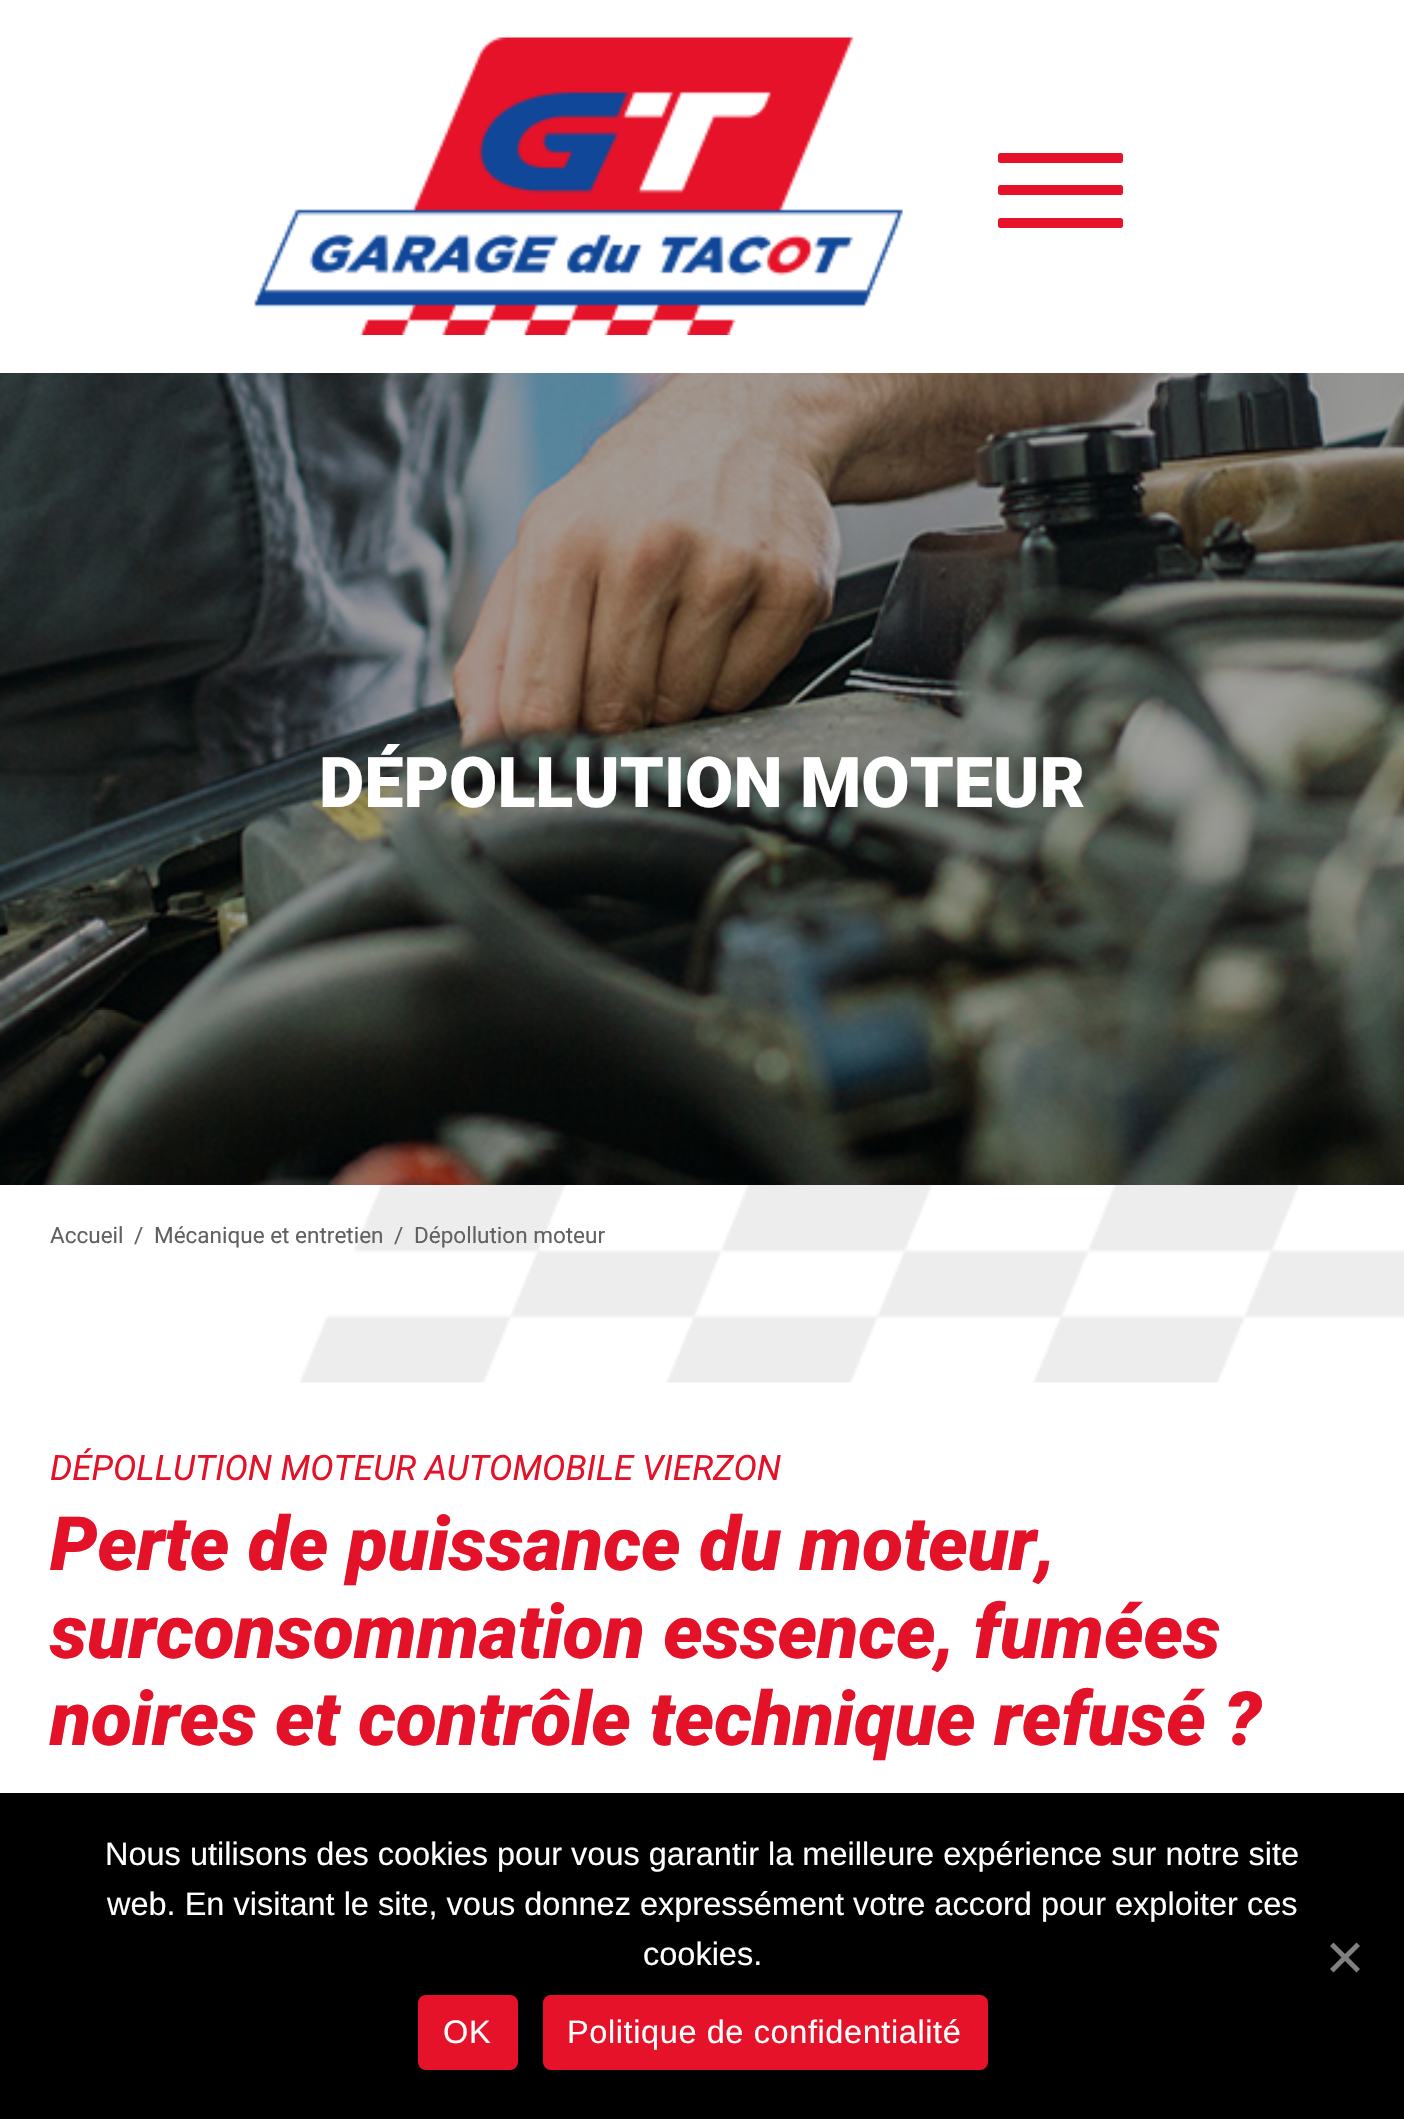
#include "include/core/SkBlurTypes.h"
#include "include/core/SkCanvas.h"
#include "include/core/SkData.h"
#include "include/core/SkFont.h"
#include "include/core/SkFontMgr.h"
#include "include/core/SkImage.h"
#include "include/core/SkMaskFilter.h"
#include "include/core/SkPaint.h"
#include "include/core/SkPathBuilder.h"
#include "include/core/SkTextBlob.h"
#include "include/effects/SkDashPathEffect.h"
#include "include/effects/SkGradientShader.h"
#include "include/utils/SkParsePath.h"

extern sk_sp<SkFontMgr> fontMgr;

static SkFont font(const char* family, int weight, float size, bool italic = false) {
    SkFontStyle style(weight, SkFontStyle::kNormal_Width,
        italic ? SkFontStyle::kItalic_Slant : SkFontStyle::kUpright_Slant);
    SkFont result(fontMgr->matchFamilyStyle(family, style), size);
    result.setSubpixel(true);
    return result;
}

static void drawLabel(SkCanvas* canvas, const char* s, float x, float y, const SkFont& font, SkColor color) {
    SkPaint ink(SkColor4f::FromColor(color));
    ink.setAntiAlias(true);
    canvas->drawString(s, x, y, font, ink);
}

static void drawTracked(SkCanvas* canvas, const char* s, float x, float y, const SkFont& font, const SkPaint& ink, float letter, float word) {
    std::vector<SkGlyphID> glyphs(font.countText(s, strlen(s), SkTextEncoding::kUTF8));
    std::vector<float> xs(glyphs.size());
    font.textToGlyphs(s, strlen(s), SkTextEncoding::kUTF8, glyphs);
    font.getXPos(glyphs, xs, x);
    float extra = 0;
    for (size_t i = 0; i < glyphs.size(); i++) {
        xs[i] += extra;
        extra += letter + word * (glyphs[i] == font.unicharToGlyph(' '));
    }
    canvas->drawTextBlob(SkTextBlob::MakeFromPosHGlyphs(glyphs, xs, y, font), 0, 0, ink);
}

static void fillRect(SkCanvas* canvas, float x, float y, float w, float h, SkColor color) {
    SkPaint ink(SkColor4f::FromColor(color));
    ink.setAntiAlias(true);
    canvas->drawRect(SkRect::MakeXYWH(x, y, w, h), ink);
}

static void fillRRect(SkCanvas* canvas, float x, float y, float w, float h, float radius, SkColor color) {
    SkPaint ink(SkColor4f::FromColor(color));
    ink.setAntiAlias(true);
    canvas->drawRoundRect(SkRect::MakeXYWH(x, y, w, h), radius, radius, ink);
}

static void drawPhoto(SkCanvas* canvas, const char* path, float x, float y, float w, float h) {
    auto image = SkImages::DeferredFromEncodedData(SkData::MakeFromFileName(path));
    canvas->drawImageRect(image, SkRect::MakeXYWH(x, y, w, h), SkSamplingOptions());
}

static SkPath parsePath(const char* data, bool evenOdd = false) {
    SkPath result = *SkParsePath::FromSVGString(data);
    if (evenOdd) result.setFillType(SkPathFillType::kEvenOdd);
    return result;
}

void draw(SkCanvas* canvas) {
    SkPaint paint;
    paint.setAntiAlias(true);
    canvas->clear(0xFFFFFFFF);
    drawPhoto(canvas, "assets/img1.png", 254, 37, 649, 298);
    fillRRect(canvas, 998, 153, 125, 10, 2.5f, 0xFFE51229);
    fillRRect(canvas, 998, 185, 125, 10, 2.5f, 0xFFE51229);
    fillRRect(canvas, 998, 218, 125, 10, 2.5f, 0xFFE51229);
    drawPhoto(canvas, "assets/img2.png", 0, 373, 1404, 812);
    SkFont font1 = font("Roboto", 900, 70);
    drawLabel(canvas, "DÉPOLLUTION MOTEUR", 319, 807, font1, 0xFFFFFFFF);
    drawPhoto(canvas, "assets/img3.png", 300, 1185, 1104, 198);
    SkFont font2 = font("Roboto", 400, 22.5f);
    drawLabel(canvas, "Accueil", 50, 1243, font2, 0xFF616161);
    drawLabel(canvas, "/", 134, 1243, font2, 0xFF616161);
    drawLabel(canvas, "Mécanique et entretien", 154, 1243, font2, 0xFF616161);
    drawLabel(canvas, "/", 394, 1243, font2, 0xFF616161);
    drawLabel(canvas, "Dépollution moteur", 414, 1243, font2, 0xFF616161);
    SkFont font3 = font("Roboto", 400, 35, true);
    drawLabel(canvas, "DÉPOLLUTION MOTEUR AUTOMOBILE VIERZON", 50, 1480, font3, 0xFFE41229);
    SkFont font4 = font("Roboto", 900, 75, true);
    drawLabel(canvas, "Perte de puissance du moteur,", 50, 1570, font4, 0xFFE41229);
    drawLabel(canvas, "surconsommation essence, fumées", 50, 1658, font4, 0xFFE41229);
    drawLabel(canvas, "noires et contrôle technique refusé ?", 50, 1745, font4, 0xFFE41229);
    fillRect(canvas, 0, 1793, 1404, 326, 0xFF000000);
    SkFont font5 = font("Liberation Sans", 400, 32.5f);
    drawLabel(canvas, "Nous utilisons des cookies pour vous garantir la meilleure expérience sur notre site", 105, 1865, font5, 0xFFFFFFFF);
    drawLabel(canvas, "web. En visitant le site, vous donnez expressément votre accord pour exploiter ces", 107, 1915, font5, 0xFFFFFFFF);
    drawLabel(canvas, "cookies.", 643, 1965, font5, 0xFFFFFFFF);
    paint.setColor(0xFF808080);
    canvas->drawPath(parsePath("M1356.5 1942.5L1360 1946L1333.5 1972.5L1330 1969Z"), paint);
    canvas->drawPath(parsePath("M1330 1946L1333.5 1942.5L1360 1969L1356.5 1972.5Z"), paint);
    fillRRect(canvas, 418, 1995, 100, 75, 8, 0xFFE51229);
    paint.setColor(0xFFFFFFFF);
    drawTracked(canvas, "OK", 443, 2043, font5, paint, 0.6f, 0);
    fillRRect(canvas, 543, 1995, 445, 75, 8, 0xFFE51229);
    drawTracked(canvas, "Politique de confidentialité", 567, 2043, font5, paint, 0.6f, 0);
}
